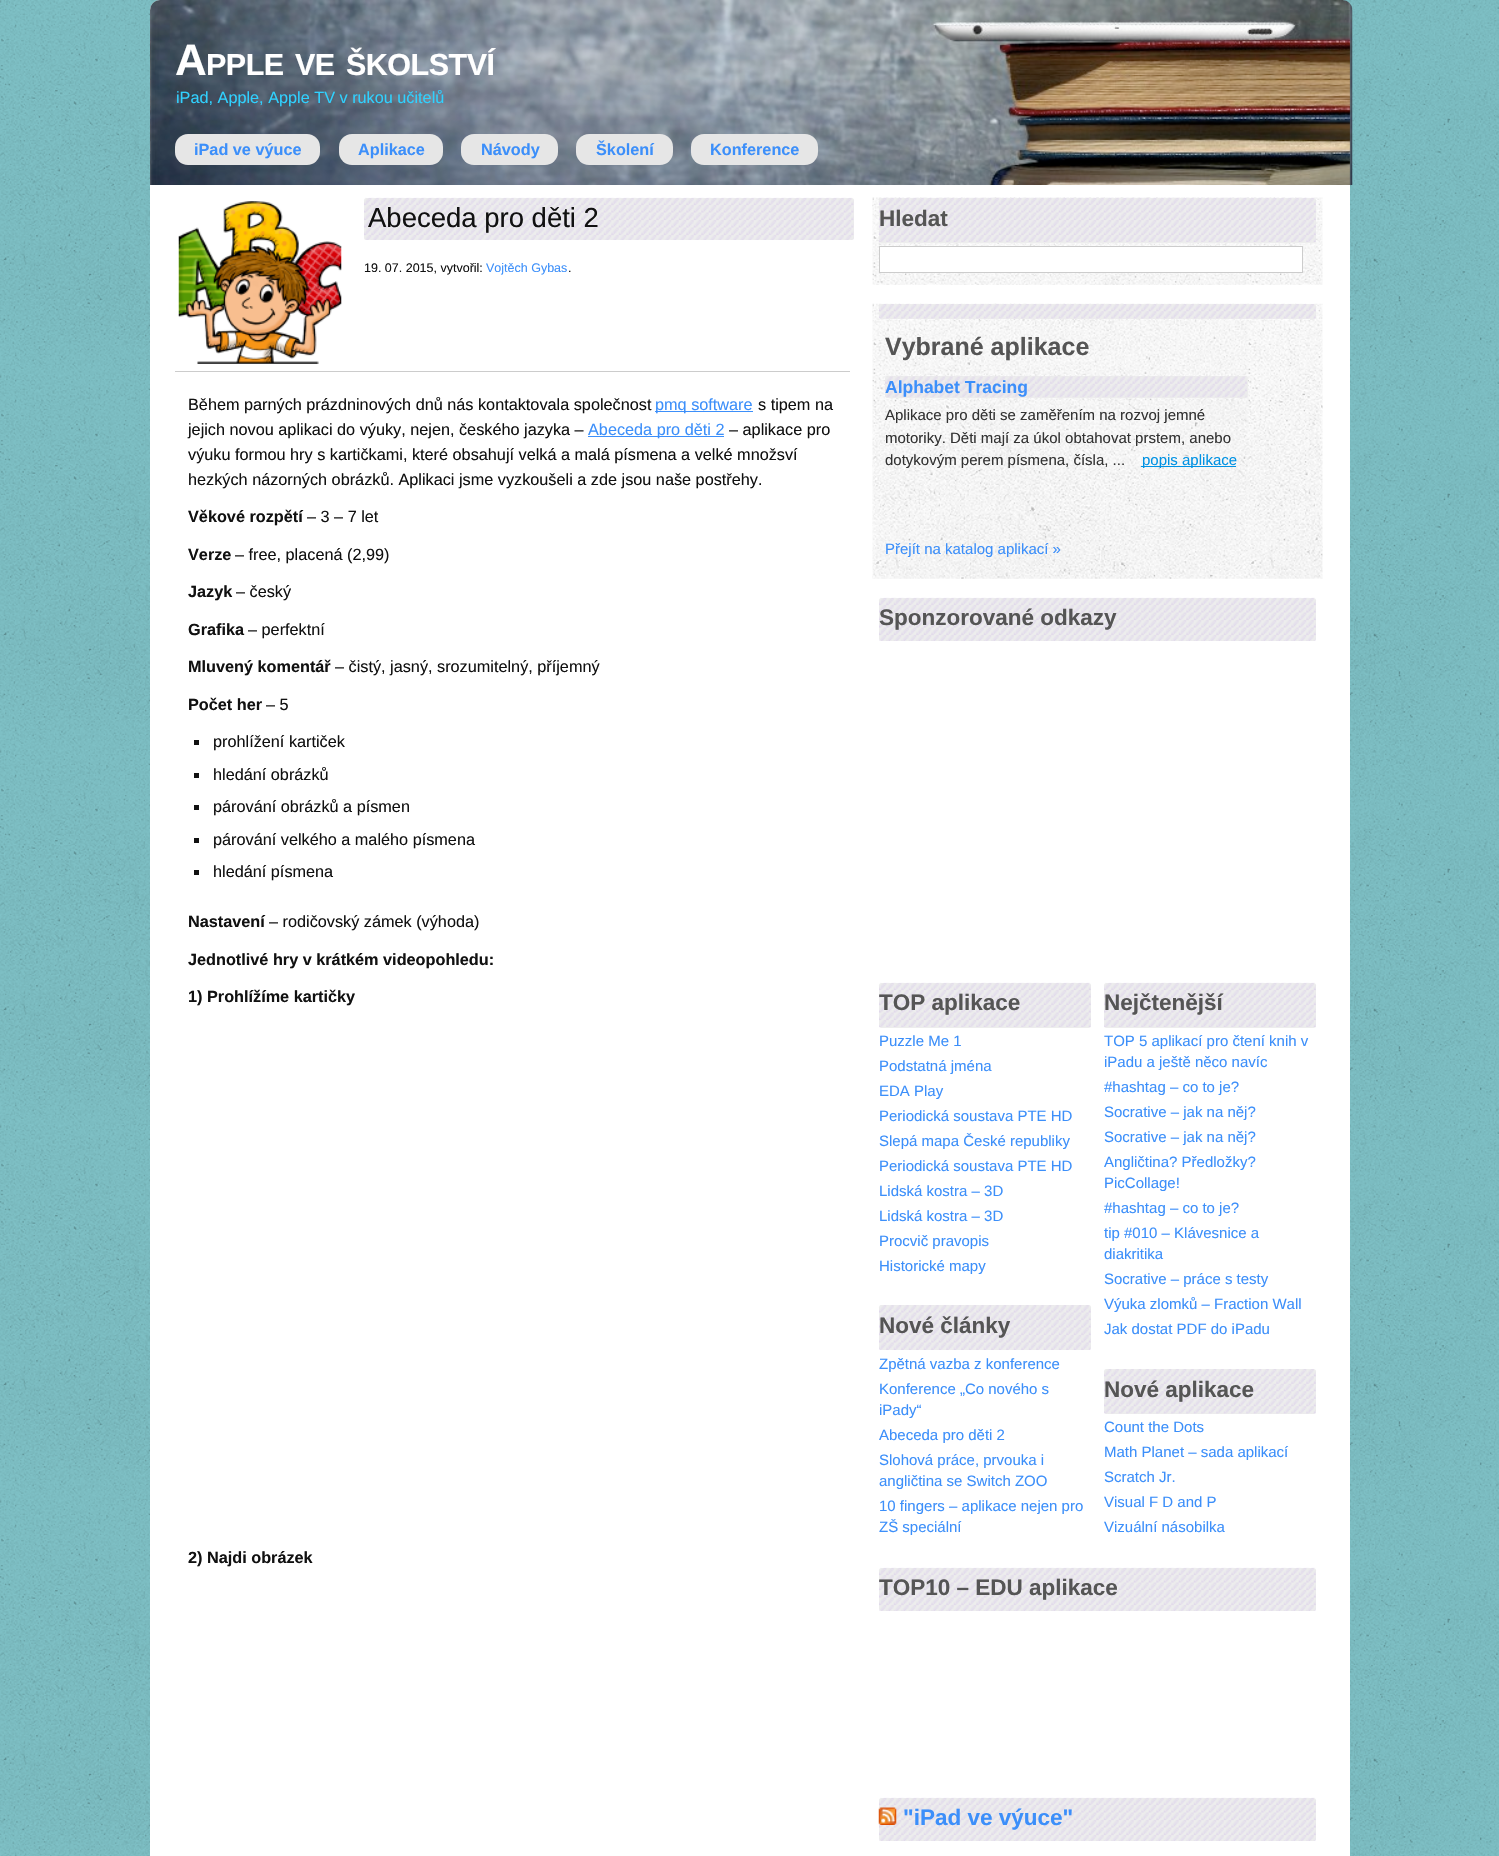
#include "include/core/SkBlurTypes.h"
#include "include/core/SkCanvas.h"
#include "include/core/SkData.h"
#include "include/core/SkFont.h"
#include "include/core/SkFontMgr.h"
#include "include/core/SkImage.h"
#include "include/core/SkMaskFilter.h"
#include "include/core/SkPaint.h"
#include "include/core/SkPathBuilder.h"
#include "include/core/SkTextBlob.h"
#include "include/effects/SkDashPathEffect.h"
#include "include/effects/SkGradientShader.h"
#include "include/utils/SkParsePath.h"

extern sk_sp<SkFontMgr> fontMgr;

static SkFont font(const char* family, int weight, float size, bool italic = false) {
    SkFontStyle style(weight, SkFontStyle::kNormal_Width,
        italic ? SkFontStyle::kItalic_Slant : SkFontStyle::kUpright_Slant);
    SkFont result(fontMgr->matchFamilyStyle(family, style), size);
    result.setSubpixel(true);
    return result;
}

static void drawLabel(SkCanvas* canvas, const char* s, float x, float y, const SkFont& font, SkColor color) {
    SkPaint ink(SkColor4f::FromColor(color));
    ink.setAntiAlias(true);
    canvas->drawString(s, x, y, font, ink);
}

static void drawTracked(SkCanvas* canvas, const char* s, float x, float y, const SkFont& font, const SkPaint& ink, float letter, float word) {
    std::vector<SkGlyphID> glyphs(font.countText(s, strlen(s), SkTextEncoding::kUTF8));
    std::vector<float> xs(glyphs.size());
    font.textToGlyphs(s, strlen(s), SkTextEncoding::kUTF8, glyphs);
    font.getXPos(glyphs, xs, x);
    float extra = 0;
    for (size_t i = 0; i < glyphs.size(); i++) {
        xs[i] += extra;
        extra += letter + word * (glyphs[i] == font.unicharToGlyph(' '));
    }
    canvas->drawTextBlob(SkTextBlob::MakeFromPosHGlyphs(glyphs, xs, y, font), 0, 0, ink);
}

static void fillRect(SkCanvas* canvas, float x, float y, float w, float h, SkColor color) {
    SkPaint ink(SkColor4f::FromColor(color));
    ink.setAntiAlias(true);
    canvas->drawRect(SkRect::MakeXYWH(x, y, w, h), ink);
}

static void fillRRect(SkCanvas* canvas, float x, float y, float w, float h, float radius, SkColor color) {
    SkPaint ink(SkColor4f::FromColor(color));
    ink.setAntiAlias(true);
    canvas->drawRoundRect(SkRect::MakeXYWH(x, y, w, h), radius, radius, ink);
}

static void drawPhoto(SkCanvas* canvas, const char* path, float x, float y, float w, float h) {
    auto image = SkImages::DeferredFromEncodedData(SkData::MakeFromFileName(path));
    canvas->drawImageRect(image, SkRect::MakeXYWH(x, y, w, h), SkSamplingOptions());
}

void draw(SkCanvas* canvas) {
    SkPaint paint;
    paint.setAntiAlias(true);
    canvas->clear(0xFF7FC2C7);
    drawPhoto(canvas, "assets/img1.png", 0, 0, 1499, 1856);
    fillRRect(canvas, 150, 0, 1200, 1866, 10, 0xFFFFFFFF);
    drawPhoto(canvas, "assets/img2.png", 150, 0, 1203, 185);
    SkFont font1 = font("Liberation Sans", 700, 44);
    paint.setColor(0xFFFFFFFF);
    drawTracked(canvas, "A", 175, 75, font1, paint, -0.5f, 0);
    SkFont font2 = font("Liberation Sans", 700, 30.5f);
    drawTracked(canvas, "PPLE", 206, 75, font2, paint, -0.5f, 0);
    drawTracked(canvas, "VE", 295, 75, font2, paint, -0.5f, 0);
    drawTracked(canvas, "ŠKOLSTVÍ", 346, 75, font2, paint, -0.5f, 0);
    SkFont font3 = font("Liberation Sans", 400, 16.25f);
    drawLabel(canvas, "iPad, Apple, Apple TV v rukou učitelů", 176, 103, font3, 0xFF30D1FF);
    fillRRect(canvas, 175, 134, 145, 31, 13, 0xFFE6E6E6);
    SkFont font4 = font("Liberation Sans", 700, 16.25f);
    drawLabel(canvas, "iPad ve výuce", 194, 155, font4, 0xFF3C8FFA);
    fillRRect(canvas, 339, 134, 104, 31, 13, 0xFFE6E6E6);
    drawLabel(canvas, "Aplikace", 358, 155, font4, 0xFF3C8FFA);
    fillRRect(canvas, 461, 134, 97, 31, 13, 0xFFE6E6E6);
    drawLabel(canvas, "Návody", 481, 155, font4, 0xFF3C8FFA);
    fillRRect(canvas, 576, 134, 97, 31, 13, 0xFFE6E6E6);
    drawLabel(canvas, "Školení", 596, 155, font4, 0xFF3C8FFA);
    fillRRect(canvas, 691, 134, 127, 31, 13, 0xFFE6E6E6);
    drawLabel(canvas, "Konference", 710, 155, font4, 0xFF3C8FFA);
    drawPhoto(canvas, "assets/img3.png", 178, 201, 164, 163);
    fillRRect(canvas, 364, 198, 490, 42, 2.5f, 0xFFEDEDED);
    drawPhoto(canvas, "assets/img4.png", 364, 197, 490, 43);
    SkFont font5 = font("Liberation Sans", 400, 27.5f);
    drawLabel(canvas, "Abeceda pro děti 2", 368, 227, font5, 0xFF111111);
    SkFont font6 = font("Liberation Sans", 400, 12.5f);
    drawLabel(canvas, "19. 07. 2015, vytvořil:", 364, 272, font6, 0xFF111111);
    drawLabel(canvas, "Vojtěch Gybas", 486, 272, font6, 0xFF3C8FFA);
    drawLabel(canvas, ".", 568, 272, font6, 0xFF111111);
    fillRect(canvas, 175, 371, 675, 1, 0xFFCCCCCC);
    drawLabel(canvas, "Během parných prázdninových dnů nás kontaktovala společnost", 188, 410, font3, 0xFF111111);
    fillRect(canvas, 655, 411, 98, 1, 0xFF3C8FFA);
    drawLabel(canvas, "pmq software", 655, 410, font3, 0xFF3C8FFA);
    drawLabel(canvas, "s tipem na", 758, 410, font3, 0xFF111111);
    drawLabel(canvas, "jejich novou aplikaci do výuky, nejen, českého jazyka –", 188, 435, font3, 0xFF111111);
    fillRect(canvas, 588, 436, 136, 1, 0xFF3C8FFA);
    drawLabel(canvas, "Abeceda pro děti 2", 588, 435, font3, 0xFF3C8FFA);
    drawLabel(canvas, "– aplikace pro", 729, 435, font3, 0xFF111111);
    drawLabel(canvas, "výuku formou hry s kartičkami, které obsahují velká a malá písmena a velké množsví", 188, 460, font3, 0xFF111111);
    drawLabel(canvas, "hezkých názorných obrázků. Aplikaci jsme vyzkoušeli a zde jsou naše postřehy.", 188, 485, font3, 0xFF111111);
    drawLabel(canvas, "Věkové rozpětí", 188, 522, font4, 0xFF111111);
    drawLabel(canvas, "– 3 – 7 let", 307, 522, font3, 0xFF111111);
    drawLabel(canvas, "Verze", 188, 560, font4, 0xFF111111);
    drawLabel(canvas, "– free, placená (2,99)", 235, 560, font3, 0xFF111111);
    drawLabel(canvas, "Jazyk", 188, 597, font4, 0xFF111111);
    drawLabel(canvas, "– český", 236, 597, font3, 0xFF111111);
    drawLabel(canvas, "Grafika", 188, 635, font4, 0xFF111111);
    drawLabel(canvas, "– perfektní", 248, 635, font3, 0xFF111111);
    drawLabel(canvas, "Mluvený komentář", 188, 672, font4, 0xFF111111);
    drawLabel(canvas, "– čistý, jasný, srozumitelný, příjemný", 335, 672, font3, 0xFF111111);
    drawLabel(canvas, "Počet her", 188, 710, font4, 0xFF111111);
    drawLabel(canvas, "– 5", 266, 710, font3, 0xFF111111);
    fillRect(canvas, 194, 740, 5, 5, 0xFF111111);
    drawLabel(canvas, "prohlížení kartiček", 213, 747, font3, 0xFF111111);
    fillRect(canvas, 194, 773, 5, 5, 0xFF111111);
    drawLabel(canvas, "hledání obrázků", 213, 780, font3, 0xFF111111);
    fillRect(canvas, 194, 805, 5, 5, 0xFF111111);
    drawLabel(canvas, "párování obrázků a písmen", 213, 812, font3, 0xFF111111);
    fillRect(canvas, 194, 838, 5, 5, 0xFF111111);
    drawLabel(canvas, "párování velkého a malého písmena", 213, 845, font3, 0xFF111111);
    fillRect(canvas, 194, 870, 5, 5, 0xFF111111);
    drawLabel(canvas, "hledání písmena", 213, 877, font3, 0xFF111111);
    drawLabel(canvas, "Nastavení", 188, 927, font4, 0xFF111111);
    drawLabel(canvas, "– rodičovský zámek (výhoda)", 269, 927, font3, 0xFF111111);
    drawLabel(canvas, "Jednotlivé hry v krátkém videopohledu:", 188, 965, font4, 0xFF111111);
    drawLabel(canvas, "1) Prohlížíme kartičky", 188, 1002, font4, 0xFF111111);
    drawLabel(canvas, "2) Najdi obrázek", 188, 1563, font4, 0xFF111111);
    drawPhoto(canvas, "assets/img5.png", 872, 197, 451, 88);
    fillRRect(canvas, 879, 198, 437, 45, 2.5f, 0xFFEDEDED);
    drawPhoto(canvas, "assets/img6.png", 879, 197, 437, 45);
    SkFont font7 = font("Liberation Sans", 700, 22.5f);
    drawLabel(canvas, "Hledat", 879, 226, font7, 0xFF555555);
    canvas->drawRect(SkRect::MakeXYWH(879.5f, 246.5f, 423, 26), paint);
    paint.setStroke(true);
    paint.setStrokeWidth(1);
    paint.setColor(0xFFCCCCCC);
    canvas->drawRect(SkRect::MakeXYWH(879.5f, 246.5f, 423, 26), paint);
    drawPhoto(canvas, "assets/img7.png", 872, 303, 451, 276);
    fillRRect(canvas, 879, 304, 437, 15, 2.5f, 0xFFEDEDED);
    drawPhoto(canvas, "assets/img8.png", 879, 304, 437, 15);
    SkFont font8 = font("Liberation Sans", 700, 25);
    drawLabel(canvas, "Vybrané aplikace", 885, 355, font8, 0xFF555555);
    fillRRect(canvas, 885, 376, 363, 22, 2.5f, 0xFFEDEDED);
    drawPhoto(canvas, "assets/img9.png", 885, 376, 362, 22);
    SkFont font9 = font("Liberation Sans", 700, 17.5f);
    drawLabel(canvas, "Alphabet Tracing", 885, 393, font9, 0xFF3C8FFA);
    SkFont font10 = font("Liberation Sans", 400, 15);
    drawLabel(canvas, "Aplikace pro děti se zaměřením na rozvoj jemné", 885, 420, font10, 0xFF333333);
    drawLabel(canvas, "motoriky. Děti mají za úkol obtahovat prstem, anebo", 885, 443, font10, 0xFF333333);
    drawLabel(canvas, "dotykovým perem písmena, čísla, ...", 885, 465, font10, 0xFF333333);
    fillRect(canvas, 1141, 466, 95, 1, 0xFF0092E4);
    drawLabel(canvas, "popis aplikace", 1142, 465, font10, 0xFF0092E4);
    drawLabel(canvas, "Přejít na katalog aplikací »", 885, 554, font10, 0xFF3C8FFA);
    fillRRect(canvas, 879, 598, 437, 43, 2.5f, 0xFFEDEDED);
    drawPhoto(canvas, "assets/img10.png", 879, 597, 437, 44);
    drawLabel(canvas, "Sponzorované odkazy", 879, 625, font7, 0xFF555555);
    fillRRect(canvas, 879, 983, 212, 45, 2.5f, 0xFFEDEDED);
    drawPhoto(canvas, "assets/img11.png", 879, 982, 212, 45);
    drawLabel(canvas, "TOP aplikace", 879, 1010, font7, 0xFF555555);
    drawLabel(canvas, "Puzzle Me 1", 879, 1046, font10, 0xFF3C8FFA);
    drawLabel(canvas, "Podstatná jména", 879, 1071, font10, 0xFF3C8FFA);
    drawLabel(canvas, "EDA Play", 879, 1096, font10, 0xFF3C8FFA);
    drawLabel(canvas, "Periodická soustava PTE HD", 879, 1121, font10, 0xFF3C8FFA);
    drawLabel(canvas, "Slepá mapa České republiky", 879, 1146, font10, 0xFF3C8FFA);
    drawLabel(canvas, "Periodická soustava PTE HD", 879, 1171, font10, 0xFF3C8FFA);
    drawLabel(canvas, "Lidská kostra – 3D", 879, 1196, font10, 0xFF3C8FFA);
    drawLabel(canvas, "Lidská kostra – 3D", 879, 1221, font10, 0xFF3C8FFA);
    drawLabel(canvas, "Procvič pravopis", 879, 1246, font10, 0xFF3C8FFA);
    drawLabel(canvas, "Historické mapy", 879, 1271, font10, 0xFF3C8FFA);
    fillRRect(canvas, 879, 1305, 212, 45, 2.5f, 0xFFEDEDED);
    drawPhoto(canvas, "assets/img12.png", 879, 1305, 212, 45);
    drawLabel(canvas, "Nové články", 879, 1333, font7, 0xFF555555);
    drawLabel(canvas, "Zpětná vazba z konference", 879, 1369, font10, 0xFF3C8FFA);
    drawLabel(canvas, "Konference „Co nového s", 879, 1394, font10, 0xFF3C8FFA);
    drawLabel(canvas, "iPady“", 879, 1415, font10, 0xFF3C8FFA);
    drawLabel(canvas, "Abeceda pro děti 2", 879, 1440, font10, 0xFF3C8FFA);
    drawLabel(canvas, "Slohová práce, prvouka i", 879, 1465, font10, 0xFF3C8FFA);
    drawLabel(canvas, "angličtina se Switch ZOO", 879, 1486, font10, 0xFF3C8FFA);
    drawLabel(canvas, "10 fingers – aplikace nejen pro", 879, 1511, font10, 0xFF3C8FFA);
    drawLabel(canvas, "ZŠ speciální", 879, 1532, font10, 0xFF3C8FFA);
    fillRRect(canvas, 1104, 983, 212, 45, 2.5f, 0xFFEDEDED);
    drawPhoto(canvas, "assets/img13.png", 1104, 982, 212, 45);
    drawLabel(canvas, "Nejčtenější", 1104, 1010, font7, 0xFF555555);
    drawLabel(canvas, "TOP 5 aplikací pro čtení knih v", 1104, 1046, font10, 0xFF3C8FFA);
    drawLabel(canvas, "iPadu a ještě něco navíc", 1104, 1067, font10, 0xFF3C8FFA);
    drawLabel(canvas, "#hashtag – co to je?", 1104, 1092, font10, 0xFF3C8FFA);
    drawLabel(canvas, "Socrative – jak na něj?", 1104, 1117, font10, 0xFF3C8FFA);
    drawLabel(canvas, "Socrative – jak na něj?", 1104, 1142, font10, 0xFF3C8FFA);
    drawLabel(canvas, "Angličtina? Předložky?", 1104, 1167, font10, 0xFF3C8FFA);
    drawLabel(canvas, "PicCollage!", 1104, 1188, font10, 0xFF3C8FFA);
    drawLabel(canvas, "#hashtag – co to je?", 1104, 1213, font10, 0xFF3C8FFA);
    drawLabel(canvas, "tip #010 – Klávesnice a", 1104, 1238, font10, 0xFF3C8FFA);
    drawLabel(canvas, "diakritika", 1104, 1259, font10, 0xFF3C8FFA);
    drawLabel(canvas, "Socrative – práce s testy", 1104, 1284, font10, 0xFF3C8FFA);
    drawLabel(canvas, "Výuka zlomků – Fraction Wall", 1104, 1309, font10, 0xFF3C8FFA);
    drawLabel(canvas, "Jak dostat PDF do iPadu", 1104, 1334, font10, 0xFF3C8FFA);
    fillRRect(canvas, 1104, 1369, 212, 45, 2.5f, 0xFFEDEDED);
    drawPhoto(canvas, "assets/img14.png", 1104, 1369, 212, 45);
    drawLabel(canvas, "Nové aplikace", 1104, 1397, font7, 0xFF555555);
    drawLabel(canvas, "Count the Dots", 1104, 1432, font10, 0xFF3C8FFA);
    drawLabel(canvas, "Math Planet – sada aplikací", 1104, 1457, font10, 0xFF3C8FFA);
    drawLabel(canvas, "Scratch Jr.", 1104, 1482, font10, 0xFF3C8FFA);
    drawLabel(canvas, "Visual F D and P", 1104, 1507, font10, 0xFF3C8FFA);
    drawLabel(canvas, "Vizuální násobilka", 1104, 1532, font10, 0xFF3C8FFA);
    fillRRect(canvas, 879, 1568, 437, 43, 2.5f, 0xFFEDEDED);
    drawPhoto(canvas, "assets/img10.png", 879, 1567, 437, 44);
    drawLabel(canvas, "TOP10 – EDU aplikace", 879, 1595, font7, 0xFF555555);
    fillRRect(canvas, 879, 1798, 437, 43, 2.5f, 0xFFEDEDED);
    drawPhoto(canvas, "assets/img10.png", 879, 1797, 437, 44);
    drawPhoto(canvas, "assets/img15.png", 878, 1807, 19, 18);
    drawLabel(canvas, "\"iPad ve výuce\"", 903, 1825, font7, 0xFF3C8FFA);
}
